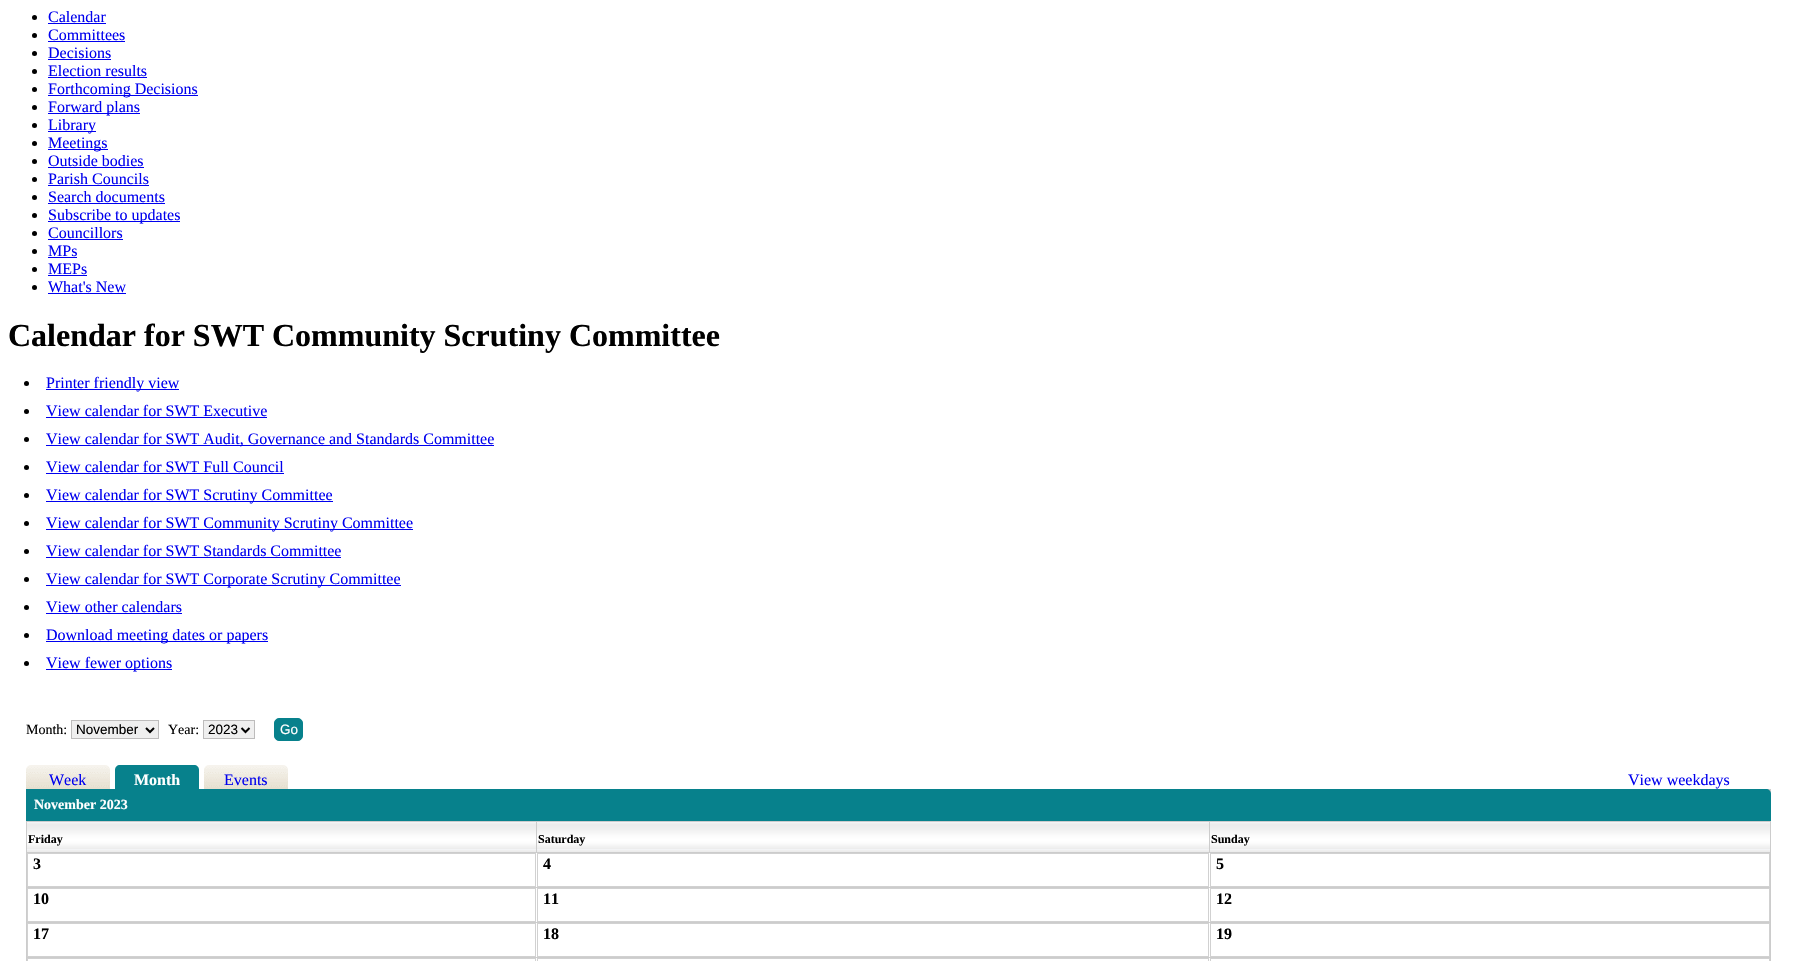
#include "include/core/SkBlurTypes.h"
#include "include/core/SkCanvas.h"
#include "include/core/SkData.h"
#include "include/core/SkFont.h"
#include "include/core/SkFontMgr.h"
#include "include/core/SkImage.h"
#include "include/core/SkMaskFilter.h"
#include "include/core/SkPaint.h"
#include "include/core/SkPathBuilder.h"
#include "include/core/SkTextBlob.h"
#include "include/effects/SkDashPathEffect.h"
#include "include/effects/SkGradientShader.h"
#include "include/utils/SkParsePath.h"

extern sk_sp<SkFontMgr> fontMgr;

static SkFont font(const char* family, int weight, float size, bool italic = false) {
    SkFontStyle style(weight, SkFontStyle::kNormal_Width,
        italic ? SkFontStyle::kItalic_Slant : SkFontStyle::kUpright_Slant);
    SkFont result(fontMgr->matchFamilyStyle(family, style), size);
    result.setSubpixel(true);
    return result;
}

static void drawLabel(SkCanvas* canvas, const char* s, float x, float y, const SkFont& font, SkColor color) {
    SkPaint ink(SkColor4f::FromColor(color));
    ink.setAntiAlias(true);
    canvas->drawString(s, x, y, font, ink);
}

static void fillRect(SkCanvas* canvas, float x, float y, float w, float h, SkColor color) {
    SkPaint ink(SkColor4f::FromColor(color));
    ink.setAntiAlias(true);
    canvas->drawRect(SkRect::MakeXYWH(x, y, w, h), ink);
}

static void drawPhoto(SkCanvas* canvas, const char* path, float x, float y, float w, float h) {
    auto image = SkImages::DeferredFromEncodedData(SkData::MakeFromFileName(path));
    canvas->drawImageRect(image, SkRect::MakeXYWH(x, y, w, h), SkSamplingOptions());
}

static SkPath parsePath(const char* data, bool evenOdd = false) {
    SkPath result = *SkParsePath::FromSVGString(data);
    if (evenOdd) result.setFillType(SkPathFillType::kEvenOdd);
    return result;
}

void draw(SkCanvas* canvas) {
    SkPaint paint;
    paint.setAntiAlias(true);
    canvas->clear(0xFFFFFFFF);
    paint.setColor(0xFF000000);
    canvas->drawCircle(34.5f, 17.5f, 2.5f, paint);
    SkFont font1 = font("Liberation Serif", 400, 16);
    drawLabel(canvas, "Calendar", 48, 22, font1, 0xFF0000EE);
    fillRect(canvas, 48, 23, 58, 1, 0xFF0000EE);
    canvas->drawCircle(34.5f, 35.5f, 2.5f, paint);
    drawLabel(canvas, "Committees", 48, 40, font1, 0xFF0000EE);
    fillRect(canvas, 48, 41, 77, 1, 0xFF0000EE);
    canvas->drawCircle(34.5f, 53.5f, 2.5f, paint);
    drawLabel(canvas, "Decisions", 48, 58, font1, 0xFF0000EE);
    fillRect(canvas, 48, 59, 63, 1, 0xFF0000EE);
    canvas->drawCircle(34.5f, 71.5f, 2.5f, paint);
    drawLabel(canvas, "Election results", 48, 76, font1, 0xFF0000EE);
    fillRect(canvas, 48, 77, 99, 1, 0xFF0000EE);
    canvas->drawCircle(34.5f, 89.5f, 2.5f, paint);
    fillRect(canvas, 48, 95, 150, 1, 0xFF0000EE);
    drawLabel(canvas, "Forthcoming Decisions", 48, 94, font1, 0xFF0000EE);
    canvas->drawCircle(34.5f, 107.5f, 2.5f, paint);
    fillRect(canvas, 48, 113, 92, 1, 0xFF0000EE);
    drawLabel(canvas, "Forward plans", 48, 112, font1, 0xFF0000EE);
    canvas->drawCircle(34.5f, 125.5f, 2.5f, paint);
    fillRect(canvas, 48, 131, 48, 1, 0xFF0000EE);
    drawLabel(canvas, "Library", 48, 130, font1, 0xFF0000EE);
    canvas->drawCircle(34.5f, 143.5f, 2.5f, paint);
    fillRect(canvas, 48, 149, 60, 1, 0xFF0000EE);
    drawLabel(canvas, "Meetings", 48, 148, font1, 0xFF0000EE);
    canvas->drawCircle(34.5f, 161.5f, 2.5f, paint);
    drawLabel(canvas, "Outside bodies", 48, 166, font1, 0xFF0000EE);
    fillRect(canvas, 48, 167, 96, 1, 0xFF0000EE);
    canvas->drawCircle(34.5f, 179.5f, 2.5f, paint);
    drawLabel(canvas, "Parish Councils", 48, 184, font1, 0xFF0000EE);
    fillRect(canvas, 48, 185, 101, 1, 0xFF0000EE);
    canvas->drawCircle(34.5f, 197.5f, 2.5f, paint);
    drawLabel(canvas, "Search documents", 48, 202, font1, 0xFF0000EE);
    fillRect(canvas, 48, 203, 117, 1, 0xFF0000EE);
    canvas->drawCircle(34.5f, 215.5f, 2.5f, paint);
    fillRect(canvas, 48, 221, 132, 1, 0xFF0000EE);
    drawLabel(canvas, "Subscribe to updates", 48, 220, font1, 0xFF0000EE);
    canvas->drawCircle(34.5f, 233.5f, 2.5f, paint);
    drawLabel(canvas, "Councillors", 48, 238, font1, 0xFF0000EE);
    fillRect(canvas, 48, 239, 75, 1, 0xFF0000EE);
    canvas->drawCircle(34.5f, 251.5f, 2.5f, paint);
    drawLabel(canvas, "MPs", 48, 256, font1, 0xFF0000EE);
    fillRect(canvas, 48, 257, 29, 1, 0xFF0000EE);
    canvas->drawCircle(34.5f, 269.5f, 2.5f, paint);
    drawLabel(canvas, "MEPs", 48, 274, font1, 0xFF0000EE);
    fillRect(canvas, 48, 275, 39, 1, 0xFF0000EE);
    canvas->drawCircle(34.5f, 287.5f, 2.5f, paint);
    drawLabel(canvas, "What's New", 48, 292, font1, 0xFF0000EE);
    fillRect(canvas, 48, 293, 78, 1, 0xFF0000EE);
    SkFont font2 = font("Liberation Serif", 700, 32);
    drawLabel(canvas, "Calendar for SWT Community Scrutiny Committee", 8, 346, font2, 0xFF000000);
    canvas->drawCircle(26.5f, 383.5f, 2.5f, paint);
    fillRect(canvas, 46, 389, 133, 1, 0xFF0000EE);
    drawLabel(canvas, "Printer friendly view", 46, 388, font1, 0xFF0000EE);
    canvas->drawCircle(26.5f, 411.5f, 2.5f, paint);
    drawLabel(canvas, "View calendar for SWT Executive", 46, 416, font1, 0xFF0000EE);
    fillRect(canvas, 46, 417, 221, 1, 0xFF0000EE);
    canvas->drawCircle(26.5f, 439.5f, 2.5f, paint);
    fillRect(canvas, 46, 445, 448, 1, 0xFF0000EE);
    drawLabel(canvas, "View calendar for SWT Audit, Governance and Standards Committee", 46, 444, font1, 0xFF0000EE);
    canvas->drawCircle(26.5f, 467.5f, 2.5f, paint);
    drawLabel(canvas, "View calendar for SWT Full Council", 46, 472, font1, 0xFF0000EE);
    fillRect(canvas, 46, 473, 238, 1, 0xFF0000EE);
    canvas->drawCircle(26.5f, 495.5f, 2.5f, paint);
    fillRect(canvas, 46, 501, 287, 1, 0xFF0000EE);
    drawLabel(canvas, "View calendar for SWT Scrutiny Committee", 46, 500, font1, 0xFF0000EE);
    canvas->drawCircle(26.5f, 523.5f, 2.5f, paint);
    fillRect(canvas, 46, 529, 367, 1, 0xFF0000EE);
    drawLabel(canvas, "View calendar for SWT Community Scrutiny Committee", 46, 528, font1, 0xFF0000EE);
    canvas->drawCircle(26.5f, 551.5f, 2.5f, paint);
    drawLabel(canvas, "View calendar for SWT Standards Committee", 46, 556, font1, 0xFF0000EE);
    fillRect(canvas, 46, 557, 295, 1, 0xFF0000EE);
    canvas->drawCircle(26.5f, 579.5f, 2.5f, paint);
    fillRect(canvas, 46, 585, 355, 1, 0xFF0000EE);
    drawLabel(canvas, "View calendar for SWT Corporate Scrutiny Committee", 46, 584, font1, 0xFF0000EE);
    canvas->drawCircle(26.5f, 607.5f, 2.5f, paint);
    drawLabel(canvas, "View other calendars", 46, 612, font1, 0xFF0000EE);
    fillRect(canvas, 46, 613, 136, 1, 0xFF0000EE);
    canvas->drawCircle(26.5f, 635.5f, 2.5f, paint);
    fillRect(canvas, 46, 641, 222, 1, 0xFF0000EE);
    drawLabel(canvas, "Download meeting dates or papers", 46, 640, font1, 0xFF0000EE);
    canvas->drawCircle(26.5f, 663.5f, 2.5f, paint);
    fillRect(canvas, 46, 669, 126, 1, 0xFF0000EE);
    drawLabel(canvas, "View fewer options", 46, 668, font1, 0xFF0000EE);
    SkFont font3 = font("Liberation Serif", 400, 14);
    drawLabel(canvas, "Month:", 26, 734, font3, 0xFF000000);
    paint.setColor(0xFFEFEFEF);
    canvas->drawRect(SkRect::MakeXYWH(71.5f, 720.5f, 87, 18), paint);
    paint.setStroke(true);
    paint.setStrokeWidth(1);
    paint.setColor(0xFFBDBCBC);
    canvas->drawRect(SkRect::MakeXYWH(71.5f, 720.5f, 87, 18), paint);
    paint.setStrokeWidth(2);
    paint.setColor(0xFF000000);
    canvas->drawPath(parsePath("M146 728L150 732L154 728"), paint);
    SkFont font4 = font("Liberation Sans", 400, 13.5f);
    drawLabel(canvas, "November", 76, 734, font4, 0xFF000000);
    drawLabel(canvas, "Year:", 168, 734, font3, 0xFF000000);
    paint.setStroke(false);
    paint.setColor(0xFFEFEFEF);
    canvas->drawRect(SkRect::MakeXYWH(203.5f, 720.5f, 51, 18), paint);
    paint.setStroke(true);
    paint.setStrokeWidth(1);
    paint.setColor(0xFFBDBCBC);
    canvas->drawRect(SkRect::MakeXYWH(203.5f, 720.5f, 51, 18), paint);
    paint.setStrokeWidth(2);
    paint.setColor(0xFF000000);
    canvas->drawPath(parsePath("M241.5 728L245.5 732L249.5 728"), paint);
    drawLabel(canvas, "2023", 208, 734, font4, 0xFF000000);
    paint.setStroke(false);
    paint.setColor(0xFF07818C);
    canvas->drawRoundRect(SkRect::MakeXYWH(274.5f, 718.5f, 28, 22), 4.5f, 4.5f, paint);
    paint.setStroke(true);
    paint.setStrokeWidth(1);
    canvas->drawRoundRect(SkRect::MakeXYWH(274.5f, 718.5f, 28, 22), 4.5f, 4.5f, paint);
    drawLabel(canvas, "Go", 280, 734, font4, 0xFFFFFFFF);
    drawPhoto(canvas, "assets/img1.png", 26, 765, 84, 24);
    drawLabel(canvas, "Week", 49, 785, font1, 0xFF0000EE);
    paint.setStroke(false);
    canvas->drawPath(parsePath("M120 765H194C197 765 199 767 199 770V789H115V770C115 767 117 765 120 765Z"), paint);
    SkFont font5 = font("Liberation Serif", 700, 16);
    drawLabel(canvas, "Month", 134, 785, font5, 0xFFFFFFFF);
    drawPhoto(canvas, "assets/img1.png", 204, 765, 84, 24);
    drawLabel(canvas, "Events", 224, 785, font1, 0xFF0000EE);
    drawLabel(canvas, "View weekdays", 1628, 785, font1, 0xFF0000EE);
    fillRect(canvas, 26, 789, 1745, 172, 0xFFCCCCCC);
    canvas->drawPath(parsePath("M26 789H1766C1769 789 1771 791 1771 794V821H26Z"), paint);
    SkFont font6 = font("Liberation Serif", 700, 14);
    drawLabel(canvas, "November 2023", 34, 809, font6, 0xFFFFFFFF);
    drawPhoto(canvas, "assets/img2.png", 27, 822, 509, 30);
    SkFont font7 = font("Liberation Serif", 700, 12);
    drawLabel(canvas, "Friday", 28, 843, font7, 0xFF000000);
    drawPhoto(canvas, "assets/img3.png", 537, 822, 672, 30);
    drawLabel(canvas, "Saturday", 538, 843, font7, 0xFF000000);
    drawPhoto(canvas, "assets/img4.png", 1210, 822, 560, 30);
    drawLabel(canvas, "Sunday", 1211, 843, font7, 0xFF000000);
    fillRect(canvas, 28, 853, 1741, 34, 0xFFFFFFFF);
    paint.setStroke(true);
    paint.setColor(0xFFD1D1D1);
    canvas->drawRect(SkRect::MakeXYWH(27.5f, 853.5f, 508, 33), paint);
    drawLabel(canvas, "3", 33, 869, font5, 0xFF000000);
    canvas->drawRect(SkRect::MakeXYWH(537.5f, 853.5f, 671, 33), paint);
    drawLabel(canvas, "4", 543, 869, font5, 0xFF000000);
    canvas->drawRect(SkRect::MakeXYWH(1210.5f, 853.5f, 559, 33), paint);
    drawLabel(canvas, "5", 1216, 869, font5, 0xFF000000);
    fillRect(canvas, 28, 888, 1741, 34, 0xFFFFFFFF);
    canvas->drawRect(SkRect::MakeXYWH(27.5f, 888.5f, 508, 33), paint);
    drawLabel(canvas, "10", 33, 904, font5, 0xFF000000);
    canvas->drawRect(SkRect::MakeXYWH(537.5f, 888.5f, 671, 33), paint);
    drawLabel(canvas, "11", 543, 904, font5, 0xFF000000);
    canvas->drawRect(SkRect::MakeXYWH(1210.5f, 888.5f, 559, 33), paint);
    drawLabel(canvas, "12", 1216, 904, font5, 0xFF000000);
    fillRect(canvas, 28, 923, 1741, 34, 0xFFFFFFFF);
    canvas->drawRect(SkRect::MakeXYWH(27.5f, 923.5f, 508, 33), paint);
    drawLabel(canvas, "17", 33, 939, font5, 0xFF000000);
    canvas->drawRect(SkRect::MakeXYWH(537.5f, 923.5f, 671, 33), paint);
    drawLabel(canvas, "18", 543, 939, font5, 0xFF000000);
    canvas->drawRect(SkRect::MakeXYWH(1210.5f, 923.5f, 559, 33), paint);
    drawLabel(canvas, "19", 1216, 939, font5, 0xFF000000);
    fillRect(canvas, 27, 958, 1743, 3, 0xFFFFFFFF);
    canvas->drawRect(SkRect::MakeXYWH(27.5f, 958.5f, 508, 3), paint);
    canvas->drawRect(SkRect::MakeXYWH(537.5f, 958.5f, 671, 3), paint);
    canvas->drawRect(SkRect::MakeXYWH(1210.5f, 958.5f, 559, 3), paint);
}
